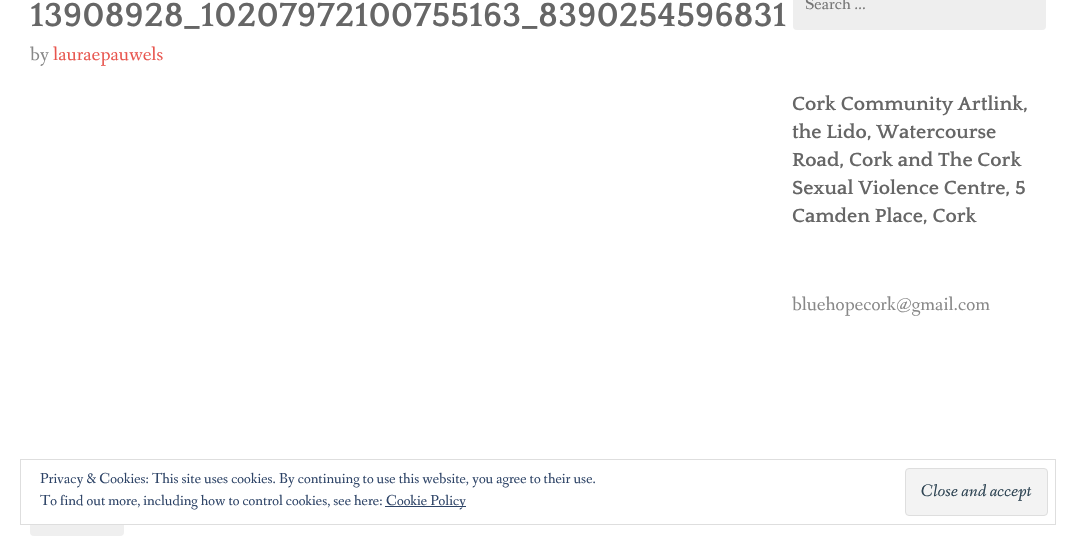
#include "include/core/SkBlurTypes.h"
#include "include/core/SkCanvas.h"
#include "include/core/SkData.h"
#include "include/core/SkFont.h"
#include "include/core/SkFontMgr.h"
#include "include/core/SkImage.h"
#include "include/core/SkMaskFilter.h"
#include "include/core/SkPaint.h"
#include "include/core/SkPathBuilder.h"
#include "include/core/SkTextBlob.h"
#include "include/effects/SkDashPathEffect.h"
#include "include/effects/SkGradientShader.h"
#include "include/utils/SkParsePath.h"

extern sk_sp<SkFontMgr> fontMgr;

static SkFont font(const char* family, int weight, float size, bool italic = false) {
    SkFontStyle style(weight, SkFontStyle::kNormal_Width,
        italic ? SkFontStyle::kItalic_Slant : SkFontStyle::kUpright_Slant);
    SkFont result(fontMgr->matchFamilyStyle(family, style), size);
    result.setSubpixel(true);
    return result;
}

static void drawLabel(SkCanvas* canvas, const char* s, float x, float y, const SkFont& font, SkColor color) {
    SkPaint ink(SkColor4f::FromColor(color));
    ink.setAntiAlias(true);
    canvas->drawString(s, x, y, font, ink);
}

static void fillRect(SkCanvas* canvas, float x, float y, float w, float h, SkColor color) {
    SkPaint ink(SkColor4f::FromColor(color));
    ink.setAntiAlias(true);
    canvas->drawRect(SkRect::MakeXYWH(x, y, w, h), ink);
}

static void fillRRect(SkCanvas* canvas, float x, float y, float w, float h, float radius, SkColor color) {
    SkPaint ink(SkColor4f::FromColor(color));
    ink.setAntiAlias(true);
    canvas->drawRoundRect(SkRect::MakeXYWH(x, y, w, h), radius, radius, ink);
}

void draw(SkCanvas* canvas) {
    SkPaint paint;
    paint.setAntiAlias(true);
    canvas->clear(0xFFFFFFFF);
    SkFont font1 = font("Quattrocento", 700, 35);
    drawLabel(canvas, "13908928_10207972100755163_8390254596831", 30, 26, font1, 0xFF666666);
    SkFont font2 = font("Fanwood Text", 400, 20);
    drawLabel(canvas, "by", 30, 60, font2, 0xFF888888);
    drawLabel(canvas, "lauraepauwels", 53, 60, font2, 0xFFE8554E);
    fillRRect(canvas, 30, 491, 94, 45, 4, 0xFFEFEFEF);
    fillRRect(canvas, 793, -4, 253, 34, 4, 0xFFEEEEEE);
    SkFont font3 = font("Fanwood Text", 400, 17.5f);
    drawLabel(canvas, "Search …", 805, 9, font3, 0xFF757575);
    SkFont font4 = font("Quattrocento", 700, 20);
    drawLabel(canvas, "Cork Community Artlink,", 792, 110, font4, 0xFF666666);
    drawLabel(canvas, "the Lido, Watercourse", 792, 138, font4, 0xFF666666);
    drawLabel(canvas, "Road, Cork and The Cork", 792, 166, font4, 0xFF666666);
    drawLabel(canvas, "Sexual Violence Centre, 5", 792, 194, font4, 0xFF666666);
    drawLabel(canvas, "Camden Place, Cork", 792, 222, font4, 0xFF666666);
    drawLabel(canvas, "bluehopecork@gmail.com", 792, 310, font2, 0xFF888888);
    fillRect(canvas, 30, 491, 94, 33, 0xFFFFFFFF);
    paint.setStroke(true);
    paint.setStrokeWidth(1);
    paint.setColor(0xFFDEDEDE);
    canvas->drawRect(SkRect::MakeXYWH(20.5f, 459.5f, 1035, 65), paint);
    SkFont font5 = font("Fanwood Text", 400, 15);
    drawLabel(canvas, "Privacy & Cookies: This site uses cookies. By continuing to use this website, you agree to their use.", 40, 483, font5, 0xFF2E4467);
    drawLabel(canvas, "To find out more, including how to control cookies, see here:", 40, 505, font5, 0xFF2E4467);
    fillRect(canvas, 385, 506, 81, 1, 0xFF2E4467);
    drawLabel(canvas, "Cookie Policy", 386, 505, font5, 0xFF2E4467);
    paint.setStroke(false);
    paint.setColor(0xFFF3F3F3);
    canvas->drawRoundRect(SkRect::MakeXYWH(905.5f, 468.5f, 142, 47), 3.5f, 3.5f, paint);
    paint.setStroke(true);
    paint.setColor(0xFFDEDEDE);
    canvas->drawRoundRect(SkRect::MakeXYWH(905.5f, 468.5f, 142, 47), 3.5f, 3.5f, paint);
    SkFont font6 = font("Fanwood Text", 400, 17.5f, true);
    drawLabel(canvas, "Close and accept", 921, 496, font6, 0xFF2E4453);
}
